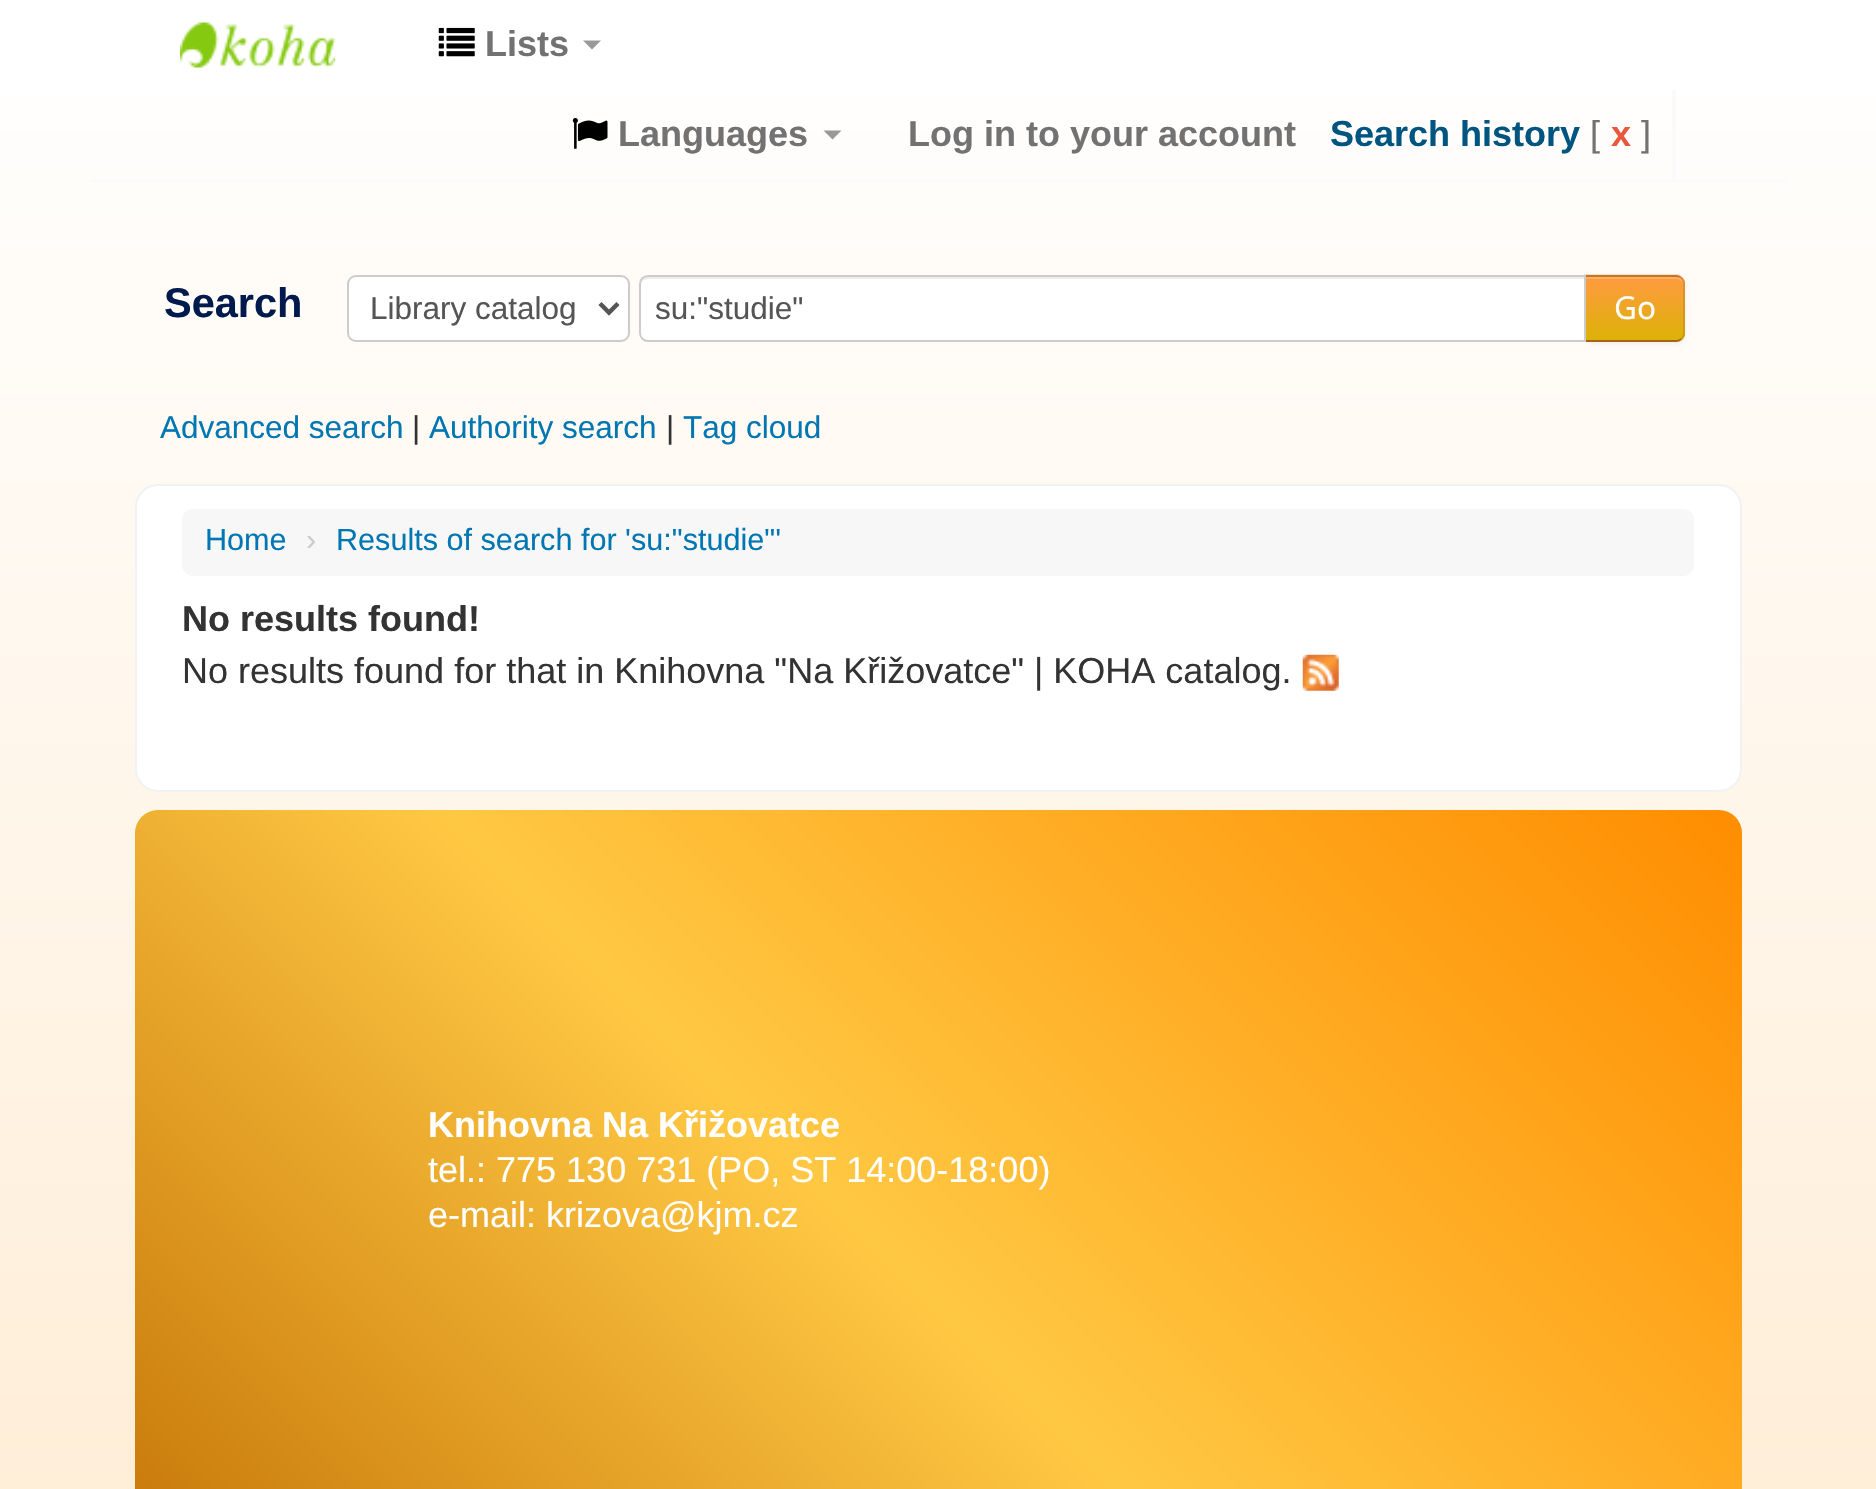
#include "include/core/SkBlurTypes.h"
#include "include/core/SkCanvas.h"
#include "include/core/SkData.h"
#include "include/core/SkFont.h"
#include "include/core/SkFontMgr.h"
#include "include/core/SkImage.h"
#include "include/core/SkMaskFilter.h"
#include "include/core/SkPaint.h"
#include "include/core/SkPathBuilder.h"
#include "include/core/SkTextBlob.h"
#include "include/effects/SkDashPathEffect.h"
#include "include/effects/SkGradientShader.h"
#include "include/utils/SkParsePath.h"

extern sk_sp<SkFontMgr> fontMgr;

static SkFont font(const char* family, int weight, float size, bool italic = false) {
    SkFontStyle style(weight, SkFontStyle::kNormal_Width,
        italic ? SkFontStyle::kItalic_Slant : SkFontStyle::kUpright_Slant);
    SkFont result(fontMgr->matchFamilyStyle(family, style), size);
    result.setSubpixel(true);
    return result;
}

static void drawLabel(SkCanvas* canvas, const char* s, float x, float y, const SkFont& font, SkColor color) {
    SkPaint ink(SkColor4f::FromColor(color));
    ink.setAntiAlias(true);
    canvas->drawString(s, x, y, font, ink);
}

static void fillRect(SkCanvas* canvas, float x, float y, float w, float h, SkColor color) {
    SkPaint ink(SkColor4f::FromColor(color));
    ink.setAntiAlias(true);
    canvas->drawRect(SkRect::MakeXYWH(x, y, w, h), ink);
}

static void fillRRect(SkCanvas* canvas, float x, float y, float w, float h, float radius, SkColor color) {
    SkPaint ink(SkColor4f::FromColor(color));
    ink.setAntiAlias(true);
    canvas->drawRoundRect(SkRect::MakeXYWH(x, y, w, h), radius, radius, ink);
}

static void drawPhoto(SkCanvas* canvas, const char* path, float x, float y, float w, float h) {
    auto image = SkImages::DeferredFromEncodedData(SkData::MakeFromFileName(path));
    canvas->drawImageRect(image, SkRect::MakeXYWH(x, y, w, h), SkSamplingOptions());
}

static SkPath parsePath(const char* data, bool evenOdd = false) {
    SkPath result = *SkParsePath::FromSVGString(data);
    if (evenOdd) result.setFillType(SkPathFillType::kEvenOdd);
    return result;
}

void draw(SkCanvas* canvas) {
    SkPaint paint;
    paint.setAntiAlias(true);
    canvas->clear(0xFFFFFFFF);
    {
        const SkColor colors[] = {0xFFFFFFFF, 0xFFFFEED8};
        const float stops[] = {0, 1};
        const SkPoint ends[] = {{938, 0}, {938, 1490}};
        paint.setShader(SkGradientShader::MakeLinear(ends, colors, stops, 2, SkTileMode::kClamp));
        paint.setAlpha(255);
    }
    canvas->drawRect(SkRect::MakeXYWH(0, 96, 1876, 1393), paint);
    fillRect(canvas, 90, 180, 1697, 2, 0xFFFCF9FC);
    drawPhoto(canvas, "assets/img1.png", 180, 22, 156, 46);
    drawPhoto(canvas, "assets/img2.png", 438, 27, 37, 30);
    SkFont font1 = font("Liberation Sans", 700, 36);
    drawLabel(canvas, "Lists", 485, 56, font1, 0xFF727272);
    paint.setShader(nullptr);
    paint.setColor(0xFF999999);
    canvas->drawPath(parsePath("M583 40.5H601L592 49.5Z"), paint);
    drawPhoto(canvas, "assets/img3.png", 572, 118, 36, 31);
    drawLabel(canvas, "Languages", 618, 146, font1, 0xFF727272);
    canvas->drawPath(parsePath("M823.5 130.5H841.5L832.5 139.5Z"), paint);
    drawLabel(canvas, "Log in to your account", 908, 146, font1, 0xFF727272);
    drawLabel(canvas, "Search history", 1330, 146, font1, 0xFF005580);
    SkFont font2 = font("Liberation Sans", 400, 36);
    drawLabel(canvas, "[", 1590, 146, font2, 0xFF727272);
    drawLabel(canvas, "x", 1611, 146, font1, 0xFFE8583C);
    drawLabel(canvas, "]", 1641, 146, font2, 0xFF727272);
    fillRect(canvas, 1672, 90, 4, 90, 0xFFFCF9FC);
    SkFont font3 = font("Liberation Sans", 700, 41.5f);
    drawLabel(canvas, "Search", 164, 317, font3, 0xFF001A4D);
    paint.setColor(0xFFFFFFFF);
    canvas->drawRoundRect(SkRect::MakeXYWH(348, 276, 281, 65), 8, 8, paint);
    paint.setStroke(true);
    paint.setStrokeWidth(2);
    paint.setColor(0xFFCCCCCC);
    canvas->drawRoundRect(SkRect::MakeXYWH(348, 276, 281, 65), 8, 8, paint);
    paint.setStrokeWidth(4.5f);
    paint.setColor(0xFF555555);
    canvas->drawPath(parsePath("M600 303.5L609 312.5L618 303.5"), paint);
    SkFont font4 = font("Liberation Sans", 400, 31.5f);
    drawLabel(canvas, "Library catalog", 370, 319, font4, 0xFF555555);
    paint.setStroke(false);
    paint.setColor(0x0D000000);
    paint.setMaskFilter(SkMaskFilter::MakeBlur(kNormal_SkBlurStyle, 2));
    canvas->drawRoundRect(SkRect::MakeXYWH(1584, 277, 101, 67), 9, 9, paint);
    paint.setMaskFilter(nullptr);
    paint.setColor(0xFFE1821D);
    canvas->drawPath(parsePath("M1584 275H1676C1681 275 1685 279 1685 284V333C1685 338 1681 342 1676 342H1584Z"), paint);
    canvas->save();
    canvas->clipPath(parsePath("M1584 275H1676C1681 275 1685 279 1685 284V333C1685 338 1681 342 1676 342H1584Z"), true);
    {
        const SkColor colors[] = {0xFFFF9A40, 0xFFDDB207};
        const float stops[] = {0, 1};
        const SkPoint ends[] = {{1635, 277}, {1635, 340}};
        paint.setShader(SkGradientShader::MakeLinear(ends, colors, stops, 2, SkTileMode::kClamp));
        paint.setAlpha(255);
    }
    canvas->drawRect(SkRect::MakeXYWH(1586, 277, 99, 63), paint);
    canvas->restore();
    paint.setShader(nullptr);
    paint.setColor(0x33FFFFFF);
    canvas->drawPath(parsePath("M1586 279H1676C1680 279 1683 282 1683 286V284C1683 280 1680 277 1676 277H1586Z"), paint);
    paint.setColor(0x1A000000);
    canvas->drawPath(parsePath("M1584 274H1679L1682 277L1681 279C1680 278 1678 277 1676 277H1586Z"), paint);
    canvas->drawPath(parsePath("M1682 277C1684 279 1685 282 1685 284V333C1685 335 1684 338 1682 339L1681 338C1682 337 1683 335 1683 333V284C1683 282 1682 280 1681 279Z"), paint);
    paint.setColor(0x40000000);
    canvas->drawPath(parsePath("M1676 342C1679 342 1681 341 1682 339L1681 338L1677 340H1586L1584 342Z"), paint);
    paint.setColor(0x1A000000);
    canvas->drawPath(parsePath("M1586 277L1584 274V342L1586 340Z"), paint);
    paint.setColor(0xFFFFFFFF);
    canvas->drawPath(parsePath("M648 275H1586V342H648C643 342 639 338 639 333V284C639 279 643 275 648 275Z"), paint);
    paint.setColor(0xFFECECEC);
    canvas->drawPath(parsePath("M648 279H1584V277H648C643 277 641 282 641 286C641 282 644 279 648 279Z"), paint);
    paint.setStroke(true);
    paint.setStrokeWidth(2);
    paint.setColor(0xFFCCCCCC);
    canvas->drawPath(parsePath("M648 276H1585V341H648C643.5 341 640 337.5 640 333V284C640 279.5 643.5 276 648 276Z"), paint);
    drawLabel(canvas, "su:\"studie\"", 655, 319, font4, 0xFF555555);
    SkFont font5 = font("Noto Sans", 400, 31.5f);
    drawLabel(canvas, "Go", 1614, 319, font5, 0xFFFFFFFF);
    drawLabel(canvas, "Advanced search", 160, 438, font4, 0xFF0076B2);
    drawLabel(canvas, "|", 412, 438, font4, 0xFF333333);
    drawLabel(canvas, "Authority search", 429, 438, font4, 0xFF0076B2);
    drawLabel(canvas, "|", 666, 438, font4, 0xFF333333);
    drawLabel(canvas, "Tag cloud", 683, 438, font4, 0xFF0076B2);
    paint.setStroke(false);
    paint.setColor(0xFFFFFFFF);
    canvas->drawRoundRect(SkRect::MakeXYWH(136, 485, 1605, 306), 22, 22, paint);
    paint.setStroke(true);
    paint.setColor(0xFFF0F3F3);
    canvas->drawRoundRect(SkRect::MakeXYWH(136, 485, 1605, 306), 22, 22, paint);
    fillRRect(canvas, 182, 509, 1512, 67, 11, 0xFFF7F7F7);
    SkFont font6 = font("Liberation Sans", 400, 30.6f);
    drawLabel(canvas, "Home", 205, 550, font6, 0xFF0076B2);
    drawLabel(canvas, "›", 306, 550, font6, 0xFFCCCCCC);
    drawLabel(canvas, "Results of search for 'su:\"studie\"'", 336, 550, font6, 0xFF0076B2);
    drawLabel(canvas, "No results found!", 182, 631, font1, 0xFF333333);
    drawLabel(canvas, "No results found for that in Knihovna \"Na Křižovatce\" | KOHA catalog.", 182, 683, font2, 0xFF333333);
    drawPhoto(canvas, "assets/img4.png", 1302, 654, 37, 37);
    paint.setStroke(false);
    {
        const SkColor colors[] = {0xFFC8790A, 0xFFFFC843, 0xFFFF8D00};
        const float stops[] = {0, 0.44f, 1};
        const SkPoint ends[] = {{357, 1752}, {1520, 588}};
        paint.setShader(SkGradientShader::MakeLinear(ends, colors, stops, 3, SkTileMode::kClamp));
        paint.setAlpha(255);
    }
    canvas->drawRoundRect(SkRect::MakeXYWH(135, 810, 1607, 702), 23, 23, paint);
    drawLabel(canvas, "Knihovna Na Křižovatce", 428, 1137, font1, 0xFFFFFFFF);
    drawLabel(canvas, "tel.: 775 130 731 (PO, ST 14:00-18:00)", 428, 1182, font2, 0xFFFFFFFF);
    drawLabel(canvas, "e-mail: krizova@kjm.cz", 428, 1227, font2, 0xFFFFFFFF);
}
